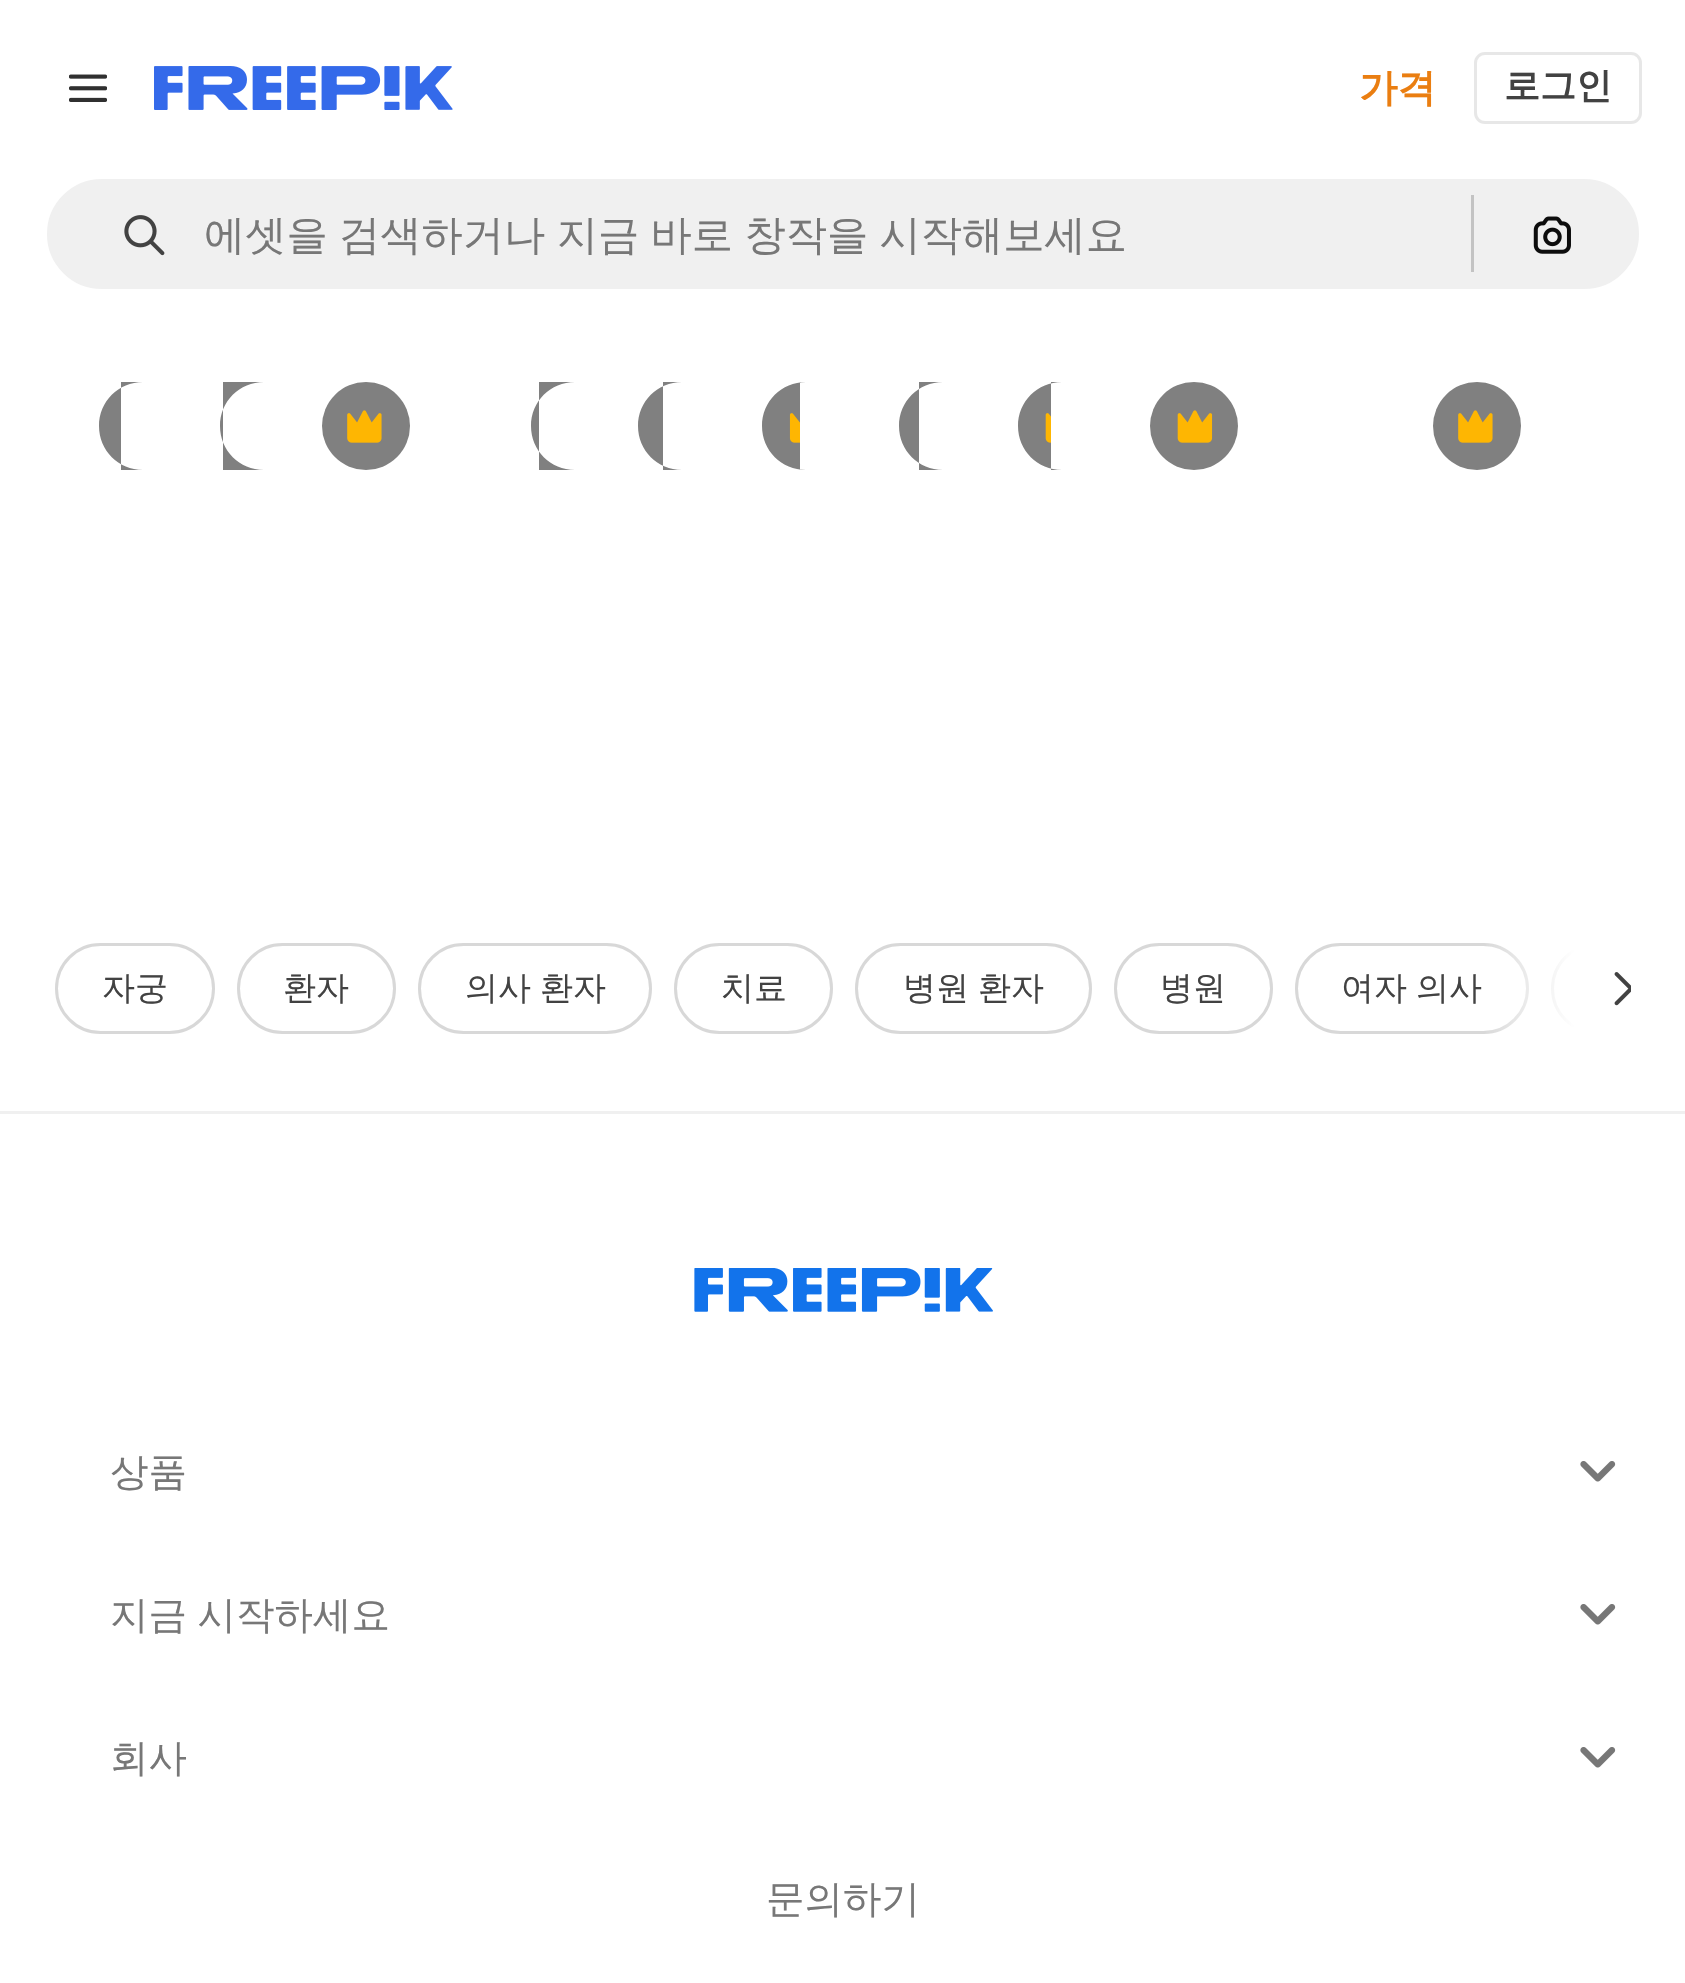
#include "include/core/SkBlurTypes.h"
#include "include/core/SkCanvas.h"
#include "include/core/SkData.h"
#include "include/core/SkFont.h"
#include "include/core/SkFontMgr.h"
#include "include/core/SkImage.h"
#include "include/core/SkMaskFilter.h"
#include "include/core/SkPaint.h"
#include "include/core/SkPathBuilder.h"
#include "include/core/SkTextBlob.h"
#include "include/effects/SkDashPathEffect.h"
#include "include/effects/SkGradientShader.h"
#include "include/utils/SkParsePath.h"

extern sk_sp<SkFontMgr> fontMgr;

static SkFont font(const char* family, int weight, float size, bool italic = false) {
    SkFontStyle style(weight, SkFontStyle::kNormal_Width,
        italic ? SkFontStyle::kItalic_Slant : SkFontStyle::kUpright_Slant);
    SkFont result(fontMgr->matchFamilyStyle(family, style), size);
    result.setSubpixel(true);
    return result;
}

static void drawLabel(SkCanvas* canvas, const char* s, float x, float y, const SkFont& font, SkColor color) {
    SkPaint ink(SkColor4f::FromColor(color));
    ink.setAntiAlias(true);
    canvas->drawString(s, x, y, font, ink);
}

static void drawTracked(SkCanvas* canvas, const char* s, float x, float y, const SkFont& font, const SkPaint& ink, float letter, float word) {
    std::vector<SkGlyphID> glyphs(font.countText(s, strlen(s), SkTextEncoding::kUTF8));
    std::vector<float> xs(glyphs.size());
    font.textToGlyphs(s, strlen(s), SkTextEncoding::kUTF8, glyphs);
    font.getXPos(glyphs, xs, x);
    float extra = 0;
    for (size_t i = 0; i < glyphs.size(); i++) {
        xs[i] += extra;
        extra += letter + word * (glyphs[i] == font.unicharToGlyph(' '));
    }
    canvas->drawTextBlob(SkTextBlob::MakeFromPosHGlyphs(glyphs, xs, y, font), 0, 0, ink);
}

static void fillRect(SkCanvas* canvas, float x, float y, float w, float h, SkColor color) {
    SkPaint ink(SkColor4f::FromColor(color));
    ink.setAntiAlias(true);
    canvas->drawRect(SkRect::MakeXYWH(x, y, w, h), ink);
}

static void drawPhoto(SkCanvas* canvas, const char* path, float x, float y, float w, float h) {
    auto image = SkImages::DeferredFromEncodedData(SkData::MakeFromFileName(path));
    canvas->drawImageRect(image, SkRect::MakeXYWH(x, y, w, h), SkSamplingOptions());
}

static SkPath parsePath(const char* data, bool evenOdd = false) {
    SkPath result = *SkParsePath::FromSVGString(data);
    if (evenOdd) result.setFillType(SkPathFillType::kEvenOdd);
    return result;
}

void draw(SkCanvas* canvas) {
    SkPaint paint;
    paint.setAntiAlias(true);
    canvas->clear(0xFFFFFFFF);
    drawPhoto(canvas, "assets/img1.png", 69, 74, 38, 28);
    drawPhoto(canvas, "assets/img2.png", 154, 66, 299, 44);
    SkFont font1 = font("WenQuanYi Zen Hei", 700, 38.5f);
    drawLabel(canvas, "가격", 1359, 101, font1, 0xFFEA7E11);
    paint.setStroke(true);
    paint.setStrokeWidth(3);
    paint.setColor(0xFFE7E7E7);
    canvas->drawRoundRect(SkRect::MakeXYWH(1475.5f, 53.5f, 165, 69), 9.5f, 9.5f, paint);
    SkFont font2 = font("WenQuanYi Zen Hei", 700, 36);
    drawLabel(canvas, "로그인", 1504, 98, font2, 0xFF424242);
    paint.setStroke(false);
    paint.setColor(0xFFF0F0F0);
    canvas->drawRoundRect(SkRect::MakeXYWH(45.5f, 177.5f, 1595, 113), 56.5f, 56.5f, paint);
    paint.setStroke(true);
    paint.setColor(0xFFFFFFFF);
    canvas->drawRoundRect(SkRect::MakeXYWH(45.5f, 177.5f, 1595, 113), 56.5f, 56.5f, paint);
    drawPhoto(canvas, "assets/img3.png", 124, 215, 41, 41);
    SkFont font3 = font("WenQuanYi Zen Hei", 500, 41.25f);
    paint.setStroke(false);
    paint.setColor(0xFF777777);
    drawTracked(canvas, "에셋을 검색하거나 지금 바로 창작을 시작해보세요", 204, 249, font3, paint, 0, -1);
    fillRect(canvas, 1471, 195, 3, 77, 0xFFC3C3C3);
    drawPhoto(canvas, "assets/img4.png", 1533, 216, 38, 38);
    paint.setColor(0xFF808080);
    canvas->drawPath(parsePath("M143 382H121V470H143C118.5 470 99 450.5 99 426C99 401.5 118.5 382 143 382Z"), paint);
    canvas->drawPath(parsePath("M264 382H223V470H264C239.5 470 220 450.5 220 426C220 401.5 239.5 382 264 382Z"), paint);
    canvas->drawCircle(366, 426, 44, paint);
    drawPhoto(canvas, "assets/img5.png", 347, 410, 35, 33);
    canvas->drawPath(parsePath("M575 382H539V470H575C550.5 470 531 450.5 531 426C531 401.5 550.5 382 575 382Z"), paint);
    canvas->drawPath(parsePath("M682 382H663V470H682C657.5 470 638 450.5 638 426C638 401.5 657.5 382 682 382Z"), paint);
    canvas->drawPath(parsePath("M806 382H800V470H806C781.5 470 762 450.5 762 426C762 401.5 781.5 382 806 382Z"), paint);
    drawPhoto(canvas, "assets/img6.png", 789, 413, 11, 30);
    canvas->drawPath(parsePath("M943 382H919V470H943C918.5 470 899 450.5 899 426C899 401.5 918.5 382 943 382Z"), paint);
    canvas->drawPath(parsePath("M1062 382H1051V470H1062C1037.5 470 1018 450.5 1018 426C1018 401.5 1037.5 382 1062 382Z"), paint);
    drawPhoto(canvas, "assets/img7.png", 1045, 413, 6, 30);
    canvas->drawCircle(1194, 426, 44, paint);
    drawPhoto(canvas, "assets/img8.png", 1177, 410, 36, 33);
    canvas->drawCircle(1477, 426, 44, paint);
    drawPhoto(canvas, "assets/img5.png", 1458, 410, 35, 33);
    paint.setStroke(true);
    paint.setColor(0xFFD8D8D8);
    canvas->drawRoundRect(SkRect::MakeXYWH(56.5f, 944.5f, 157, 88), 44, 44, paint);
    SkFont font4 = font("WenQuanYi Zen Hei", 500, 33);
    drawLabel(canvas, "자궁", 102, 999, font4, 0xFF424242);
    canvas->drawRoundRect(SkRect::MakeXYWH(238.5f, 944.5f, 156, 88), 44, 44, paint);
    drawLabel(canvas, "환자", 283, 999, font4, 0xFF424242);
    canvas->drawRoundRect(SkRect::MakeXYWH(419.5f, 944.5f, 231, 88), 44, 44, paint);
    paint.setStroke(false);
    paint.setColor(0xFF424242);
    drawTracked(canvas, "의사 환자", 465, 999, font4, paint, 0, -1);
    paint.setStroke(true);
    paint.setColor(0xFFD8D8D8);
    canvas->drawRoundRect(SkRect::MakeXYWH(675.5f, 944.5f, 156, 88), 44, 44, paint);
    drawLabel(canvas, "치료", 721, 999, font4, 0xFF424242);
    canvas->drawRoundRect(SkRect::MakeXYWH(856.5f, 944.5f, 234, 88), 44, 44, paint);
    paint.setStroke(false);
    paint.setColor(0xFF424242);
    drawTracked(canvas, "병원 환자", 903, 999, font4, paint, 0, -1);
    paint.setStroke(true);
    paint.setColor(0xFFD8D8D8);
    canvas->drawRoundRect(SkRect::MakeXYWH(1115.5f, 944.5f, 156, 88), 44, 44, paint);
    drawLabel(canvas, "병원", 1160, 999, font4, 0xFF424242);
    canvas->drawRoundRect(SkRect::MakeXYWH(1296.5f, 944.5f, 231, 88), 44, 44, paint);
    paint.setStroke(false);
    paint.setColor(0xFF424242);
    drawTracked(canvas, "여자 의사", 1341, 999, font4, paint, 0, -1);
    canvas->save();
    canvas->clipRect(SkRect::MakeXYWH(55, 943, 1576, 91));
    paint.setStroke(true);
    paint.setColor(0xFFD8D8D8);
    canvas->drawRoundRect(SkRect::MakeXYWH(1552.5f, 944.5f, 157, 88), 44, 44, paint);
    canvas->restore();
    fillRect(canvas, 1576, 943, 55, 91, 0xFFFFFFFF);
    paint.setStroke(false);
    {
        const SkColor colors[] = {0xFFFFFFFF, 0x00FFFFFF};
        const float stops[] = {0, 1};
        const SkPoint ends[] = {{1576, 989}, {1480, 989}};
        paint.setShader(SkGradientShader::MakeLinear(ends, colors, stops, 2, SkTileMode::kClamp));
        paint.setAlpha(255);
    }
    canvas->drawRect(SkRect::MakeXYWH(1486, 944, 90, 89), paint);
    drawPhoto(canvas, "assets/img9.png", 1614, 972, 17, 34);
    fillRect(canvas, 0, 1111, 1685, 3, 0xFFF0F0F0);
    drawPhoto(canvas, "assets/img10.png", 694, 1268, 299, 44);
    SkFont font5 = font("WenQuanYi Zen Hei", 500, 38.5f);
    drawLabel(canvas, "상품", 110, 1485, font5, 0xFF777777);
    drawPhoto(canvas, "assets/img11.png", 1580, 1461, 36, 21);
    paint.setShader(nullptr);
    paint.setColor(0xFF777777);
    drawTracked(canvas, "지금 시작하세요", 110, 1628, font5, paint, 0, -1);
    drawPhoto(canvas, "assets/img11.png", 1580, 1604, 36, 21);
    drawLabel(canvas, "회사", 110, 1771, font5, 0xFF777777);
    drawPhoto(canvas, "assets/img11.png", 1580, 1747, 36, 21);
    drawLabel(canvas, "문의하기", 766, 1912, font5, 0xFF777777);
}
